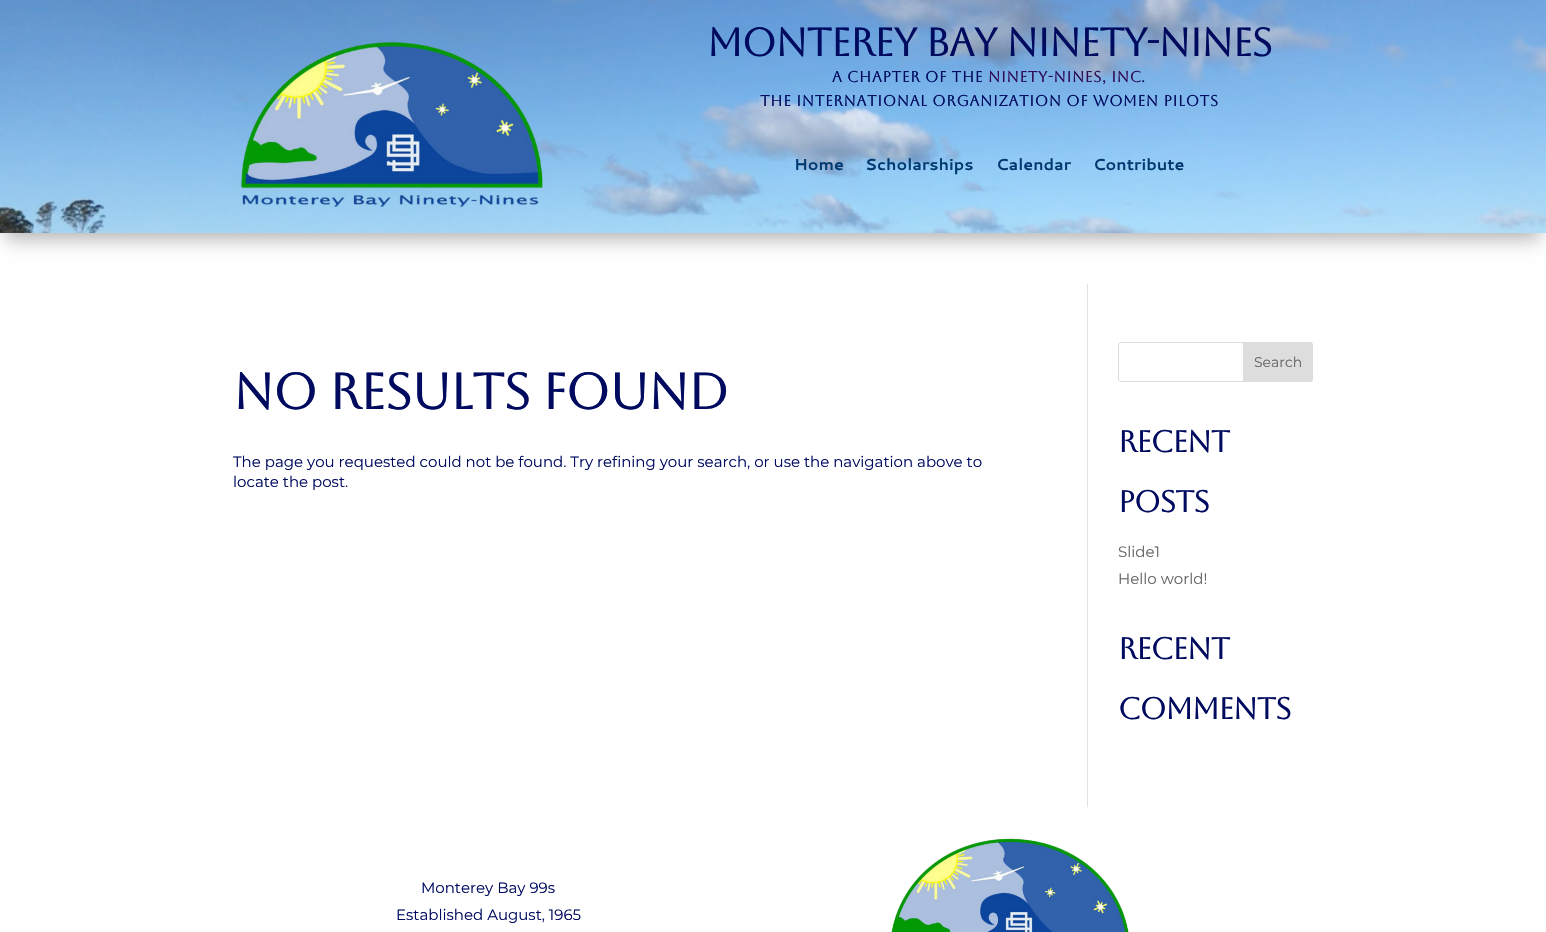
#include "include/core/SkBlurTypes.h"
#include "include/core/SkCanvas.h"
#include "include/core/SkData.h"
#include "include/core/SkFont.h"
#include "include/core/SkFontMgr.h"
#include "include/core/SkImage.h"
#include "include/core/SkMaskFilter.h"
#include "include/core/SkPaint.h"
#include "include/core/SkPathBuilder.h"
#include "include/core/SkTextBlob.h"
#include "include/effects/SkDashPathEffect.h"
#include "include/effects/SkGradientShader.h"
#include "include/utils/SkParsePath.h"

extern sk_sp<SkFontMgr> fontMgr;

static SkFont font(const char* family, int weight, float size, bool italic = false) {
    SkFontStyle style(weight, SkFontStyle::kNormal_Width,
        italic ? SkFontStyle::kItalic_Slant : SkFontStyle::kUpright_Slant);
    SkFont result(fontMgr->matchFamilyStyle(family, style), size);
    result.setSubpixel(true);
    return result;
}

static void drawLabel(SkCanvas* canvas, const char* s, float x, float y, const SkFont& font, SkColor color) {
    SkPaint ink(SkColor4f::FromColor(color));
    ink.setAntiAlias(true);
    canvas->drawString(s, x, y, font, ink);
}

static void drawTracked(SkCanvas* canvas, const char* s, float x, float y, const SkFont& font, const SkPaint& ink, float letter, float word) {
    std::vector<SkGlyphID> glyphs(font.countText(s, strlen(s), SkTextEncoding::kUTF8));
    std::vector<float> xs(glyphs.size());
    font.textToGlyphs(s, strlen(s), SkTextEncoding::kUTF8, glyphs);
    font.getXPos(glyphs, xs, x);
    float extra = 0;
    for (size_t i = 0; i < glyphs.size(); i++) {
        xs[i] += extra;
        extra += letter + word * (glyphs[i] == font.unicharToGlyph(' '));
    }
    canvas->drawTextBlob(SkTextBlob::MakeFromPosHGlyphs(glyphs, xs, y, font), 0, 0, ink);
}

static void fillRect(SkCanvas* canvas, float x, float y, float w, float h, SkColor color) {
    SkPaint ink(SkColor4f::FromColor(color));
    ink.setAntiAlias(true);
    canvas->drawRect(SkRect::MakeXYWH(x, y, w, h), ink);
}

static void drawPhoto(SkCanvas* canvas, const char* path, float x, float y, float w, float h) {
    auto image = SkImages::DeferredFromEncodedData(SkData::MakeFromFileName(path));
    canvas->drawImageRect(image, SkRect::MakeXYWH(x, y, w, h), SkSamplingOptions());
}

static SkPath parsePath(const char* data, bool evenOdd = false) {
    SkPath result = *SkParsePath::FromSVGString(data);
    if (evenOdd) result.setFillType(SkPathFillType::kEvenOdd);
    return result;
}

void draw(SkCanvas* canvas) {
    SkPaint paint;
    paint.setAntiAlias(true);
    canvas->clear(0xFFFFFFFF);
    paint.setColor(0x4D000000);
    paint.setMaskFilter(SkMaskFilter::MakeBlur(kNormal_SkBlurStyle, 9));
    canvas->drawRect(SkRect::MakeXYWH(6, 18, 1534, 221), paint);
    paint.setMaskFilter(nullptr);
    drawPhoto(canvas, "assets/img1.png", 0, 0, 1546, 233);
    drawPhoto(canvas, "assets/img2.png", 240, 41, 303, 167);
    SkFont font1 = font("Aboreto", 700, 39);
    paint.setColor(0xFF000B60);
    drawTracked(canvas, "Monterey Bay Ninety-Nines", 707, 56, font1, paint, -1, 0);
    SkFont font2 = font("Aboreto", 700, 15);
    drawTracked(canvas, "A Chapter of The", 832, 82, font2, paint, 0.6f, 0);
    paint.setColor(0xFF2D0C56);
    drawTracked(canvas, "Ninety-Nines, Inc", 988, 82, font2, paint, 0.6f, 0);
    paint.setColor(0xFF000B60);
    drawTracked(canvas, ".", 1141, 82, font2, paint, 0.6f, 0);
    drawTracked(canvas, "The International Organization of Women Pilots", 760, 106, font2, paint, 0.6f, 0);
    SkFont font3 = font("Cantarell", 700, 16);
    drawLabel(canvas, "Home", 794, 170, font3, 0xFF003970);
    drawLabel(canvas, "Scholarships", 865, 170, font3, 0xFF003970);
    drawLabel(canvas, "Calendar", 996, 170, font3, 0xFF003970);
    drawLabel(canvas, "Contribute", 1093, 170, font3, 0xFF003970);
    fillRect(canvas, 1087, 284, 1, 523, 0xFFE2E2E2);
    SkFont font4 = font("Aboreto", 700, 50);
    drawTracked(canvas, "No Results Found", 233, 409, font4, paint, -1, 0);
    SkFont font5 = font("Montserrat", 400, 15);
    drawLabel(canvas, "The page you requested could not be found. Try refining your search, or use the navigation above to", 233, 467, font5, 0xFF000B60);
    drawLabel(canvas, "locate the post.", 233, 487, font5, 0xFF000B60);
    paint.setStroke(true);
    paint.setStrokeWidth(1);
    paint.setColor(0xFFDDDDDD);
    canvas->drawRoundRect(SkRect::MakeXYWH(1118.5f, 342.5f, 194, 39), 2.5f, 2.5f, paint);
    paint.setStroke(false);
    canvas->drawPath(parsePath("M1243.5 342.5H1310C1311.5 342.5 1312.5 343.5 1312.5 345V379C1312.5 380.5 1311.5 381.5 1310 381.5H1243.5Z"), paint);
    paint.setStroke(true);
    canvas->drawPath(parsePath("M1243.5 342.5H1310C1311.5 342.5 1312.5 343.5 1312.5 345V379C1312.5 380.5 1311.5 381.5 1310 381.5H1243.5Z"), paint);
    SkFont font6 = font("Montserrat", 400, 14);
    drawLabel(canvas, "Search", 1254, 367, font6, 0xFF666666);
    SkFont font7 = font("Aboreto", 700, 30);
    paint.setStroke(false);
    paint.setColor(0xFF000B60);
    drawTracked(canvas, "Recent", 1118, 452, font7, paint, -1, 0);
    drawTracked(canvas, "Posts", 1118, 512, font7, paint, -1, 0);
    drawLabel(canvas, "Slide1", 1118, 557, font5, 0xFF666666);
    drawLabel(canvas, "Hello world!", 1118, 584, font5, 0xFF666666);
    drawTracked(canvas, "Recent", 1118, 659, font7, paint, -1, 0);
    drawTracked(canvas, "Comments", 1118, 719, font7, paint, -1, 0);
    drawLabel(canvas, "Monterey Bay 99s", 421, 893, font5, 0xFF000B60);
    drawLabel(canvas, "Established August, 1965", 396, 920, font5, 0xFF000B60);
    drawPhoto(canvas, "assets/img3.png", 891, 838, 238, 94);
}
